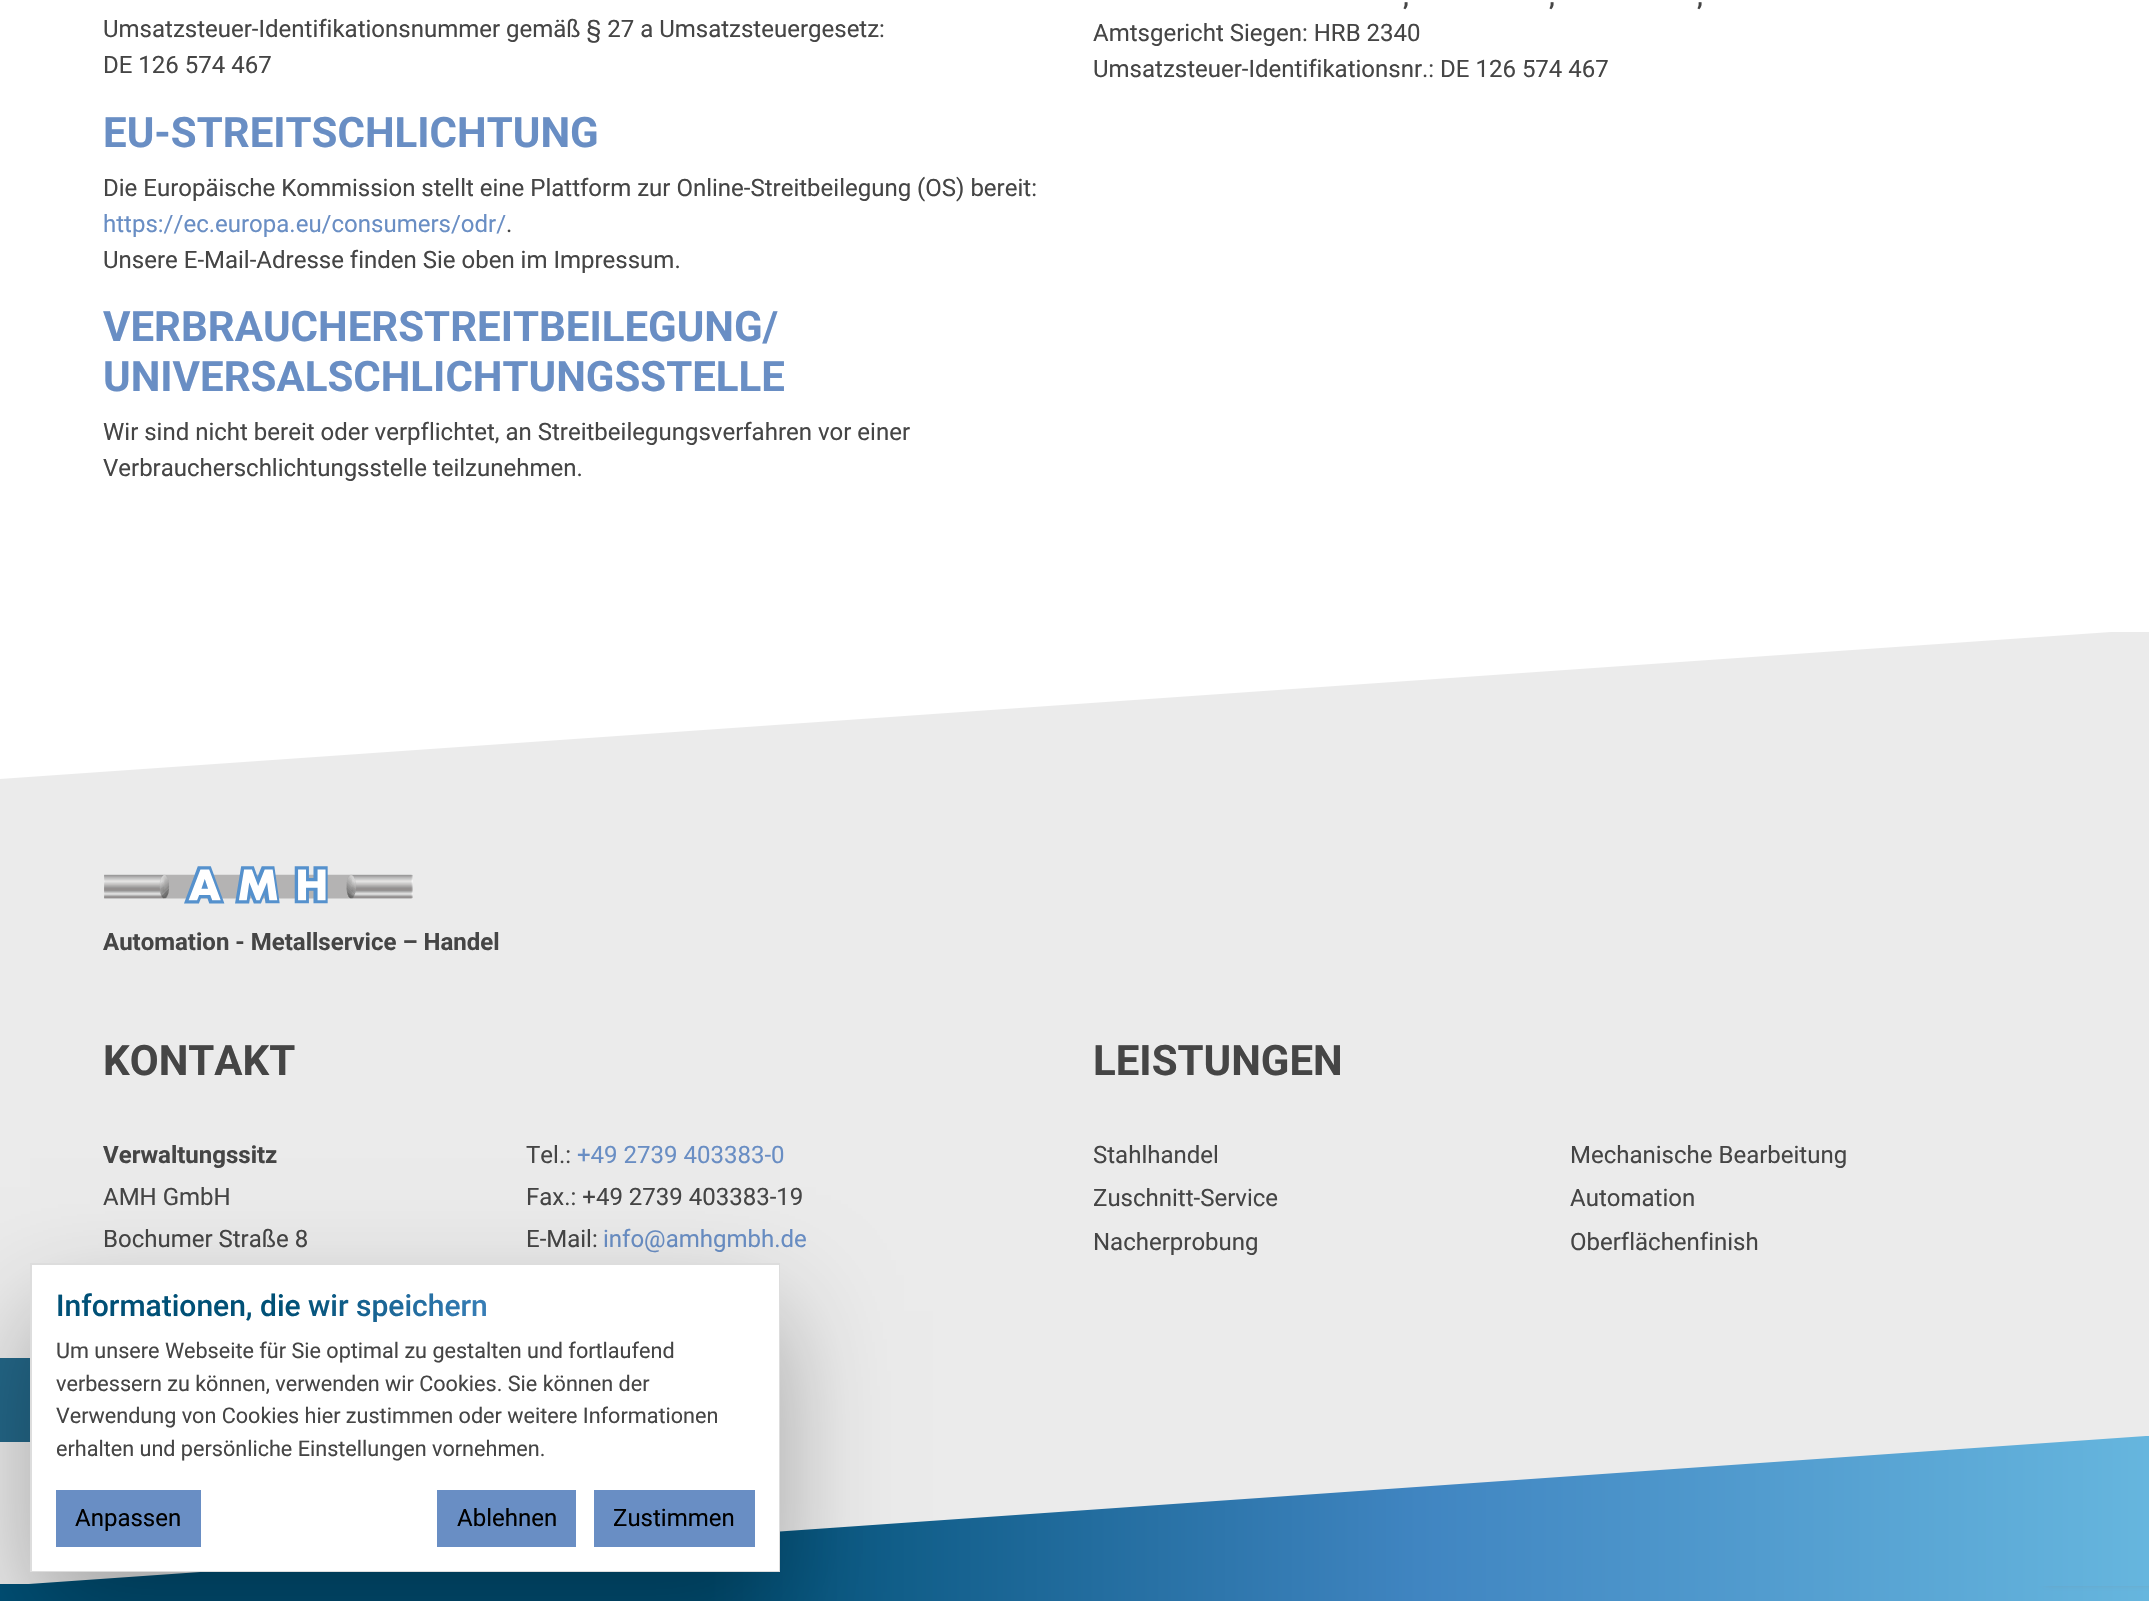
#include "include/core/SkBlurTypes.h"
#include "include/core/SkCanvas.h"
#include "include/core/SkData.h"
#include "include/core/SkFont.h"
#include "include/core/SkFontMgr.h"
#include "include/core/SkImage.h"
#include "include/core/SkMaskFilter.h"
#include "include/core/SkPaint.h"
#include "include/core/SkPathBuilder.h"
#include "include/core/SkTextBlob.h"
#include "include/effects/SkDashPathEffect.h"
#include "include/effects/SkGradientShader.h"
#include "include/utils/SkParsePath.h"

extern sk_sp<SkFontMgr> fontMgr;

static SkFont font(const char* family, int weight, float size, bool italic = false) {
    SkFontStyle style(weight, SkFontStyle::kNormal_Width,
        italic ? SkFontStyle::kItalic_Slant : SkFontStyle::kUpright_Slant);
    SkFont result(fontMgr->matchFamilyStyle(family, style), size);
    result.setSubpixel(true);
    return result;
}

static void drawLabel(SkCanvas* canvas, const char* s, float x, float y, const SkFont& font, SkColor color) {
    SkPaint ink(SkColor4f::FromColor(color));
    ink.setAntiAlias(true);
    canvas->drawString(s, x, y, font, ink);
}

static void fillRect(SkCanvas* canvas, float x, float y, float w, float h, SkColor color) {
    SkPaint ink(SkColor4f::FromColor(color));
    ink.setAntiAlias(true);
    canvas->drawRect(SkRect::MakeXYWH(x, y, w, h), ink);
}

static void drawPhoto(SkCanvas* canvas, const char* path, float x, float y, float w, float h) {
    auto image = SkImages::DeferredFromEncodedData(SkData::MakeFromFileName(path));
    canvas->drawImageRect(image, SkRect::MakeXYWH(x, y, w, h), SkSamplingOptions());
}

static SkPath parsePath(const char* data, bool evenOdd = false) {
    SkPath result = *SkParsePath::FromSVGString(data);
    if (evenOdd) result.setFillType(SkPathFillType::kEvenOdd);
    return result;
}

void draw(SkCanvas* canvas) {
    SkPaint paint;
    paint.setAntiAlias(true);
    canvas->clear(0xFFFFFFFF);
    SkFont font1 = font("Roboto", 400, 24);
    drawLabel(canvas, "Umsatzsteuer-Identifikationsnummer gemäß § 27 a Umsatzsteuergesetz:", 103, 37, font1, 0xFF454545);
    drawLabel(canvas, "DE 126 574 467", 103, 73, font1, 0xFF454545);
    SkFont font2 = font("Roboto", 700, 42);
    drawLabel(canvas, "EU-STREITSCHLICHTUNG", 103, 147, font2, 0xFF698EC4);
    drawLabel(canvas, "Die Europäische Kommission stellt eine Plattform zur Online-Streitbeilegung (OS) bereit:", 103, 196, font1, 0xFF454545);
    drawLabel(canvas, "https://ec.europa.eu/consumers/odr/", 103, 232, font1, 0xFF698EC4);
    drawLabel(canvas, ".", 506, 232, font1, 0xFF454545);
    drawLabel(canvas, "Unsere E-Mail-Adresse finden Sie oben im Impressum.", 103, 268, font1, 0xFF454545);
    drawLabel(canvas, "VERBRAUCHERSTREITBEILEGUNG/", 103, 341, font2, 0xFF698EC4);
    drawLabel(canvas, "UNIVERSALSCHLICHTUNGSSTELLE", 103, 391, font2, 0xFF698EC4);
    drawLabel(canvas, "Wir sind nicht bereit oder verpflichtet, an Streitbeilegungsverfahren vor einer", 103, 440, font1, 0xFF454545);
    drawLabel(canvas, "Verbraucherschlichtungsstelle teilzunehmen.", 103, 476, font1, 0xFF454545);
    SkFont font3 = font("Roboto", 700, 24);
    drawLabel(canvas, ",", 1403, 5, font3, 0xFF454545);
    drawLabel(canvas, ",", 1549, 5, font3, 0xFF454545);
    drawLabel(canvas, ",", 1697, 5, font3, 0xFF454545);
    drawLabel(canvas, "Amtsgericht Siegen: HRB 2340", 1093, 41, font1, 0xFF454545);
    drawLabel(canvas, "Umsatzsteuer-Identifikationsnr.: DE 126 574 467", 1093, 77, font1, 0xFF454545);
    fillRect(canvas, 0, 632, 2149, 952, 0xFFEBEBEB);
    paint.setColor(0xFFFFFFFF);
    canvas->drawPath(parsePath("M0 630V779L2140 630Z"), paint);
    drawPhoto(canvas, "assets/img1.png", 104, 866, 309, 38);
    drawLabel(canvas, "Automation - Metallservice – Handel", 103, 950, font3, 0xFF454545);
    drawLabel(canvas, "KONTAKT", 103, 1075, font2, 0xFF454545);
    drawLabel(canvas, "Verwaltungssitz", 103, 1163, font3, 0xFF454545);
    drawLabel(canvas, "AMH GmbH", 103, 1205, font1, 0xFF454545);
    drawLabel(canvas, "Bochumer Straße 8", 103, 1247, font1, 0xFF454545);
    drawLabel(canvas, "Tel.:", 526, 1163, font1, 0xFF454545);
    drawLabel(canvas, "+49 2739 403383-0", 577, 1163, font1, 0xFF698EC4);
    drawLabel(canvas, "Fax.: +49 2739 403383-19", 526, 1205, font1, 0xFF454545);
    drawLabel(canvas, "E-Mail:", 526, 1247, font1, 0xFF454545);
    drawLabel(canvas, "info@amhgmbh.de", 603, 1247, font1, 0xFF698EC4);
    drawLabel(canvas, "LEISTUNGEN", 1093, 1075, font2, 0xFF454545);
    drawLabel(canvas, "Stahlhandel", 1093, 1163, font1, 0xFF454545);
    drawLabel(canvas, "Mechanische Bearbeitung", 1570, 1163, font1, 0xFF454545);
    drawLabel(canvas, "Zuschnitt-Service", 1093, 1206, font1, 0xFF454545);
    drawLabel(canvas, "Automation", 1570, 1206, font1, 0xFF454545);
    drawLabel(canvas, "Nacherprobung", 1093, 1250, font1, 0xFF454545);
    drawLabel(canvas, "Oberflächenfinish", 1570, 1250, font1, 0xFF454545);
    {
        const SkColor colors[] = {0xFF005076, 0xFF4085C1, 0xFF66B6DE};
        const float stops[] = {0.33f, 0.66f, 1};
        const SkPoint ends[] = {{0, 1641}, {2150, 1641}};
        paint.setShader(SkGradientShader::MakeLinear(ends, colors, stops, 3, SkTileMode::kClamp));
        paint.setAlpha(255);
    }
    canvas->drawRect(SkRect::MakeXYWH(0, 1584, 2149, 17), paint);
    paint.setShader(nullptr);
    paint.setColor(0xFF808080);
    paint.setMaskFilter(SkMaskFilter::MakeBlur(kNormal_SkBlurStyle, 4));
    canvas->drawRoundRect(SkRect::MakeXYWH(2045, 1491, 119, 90), 3, 3, paint);
    paint.setMaskFilter(nullptr);
    {
        const SkColor colors[] = {0xFF005076, 0xFF4085C1, 0xFF66B6DE};
        const float stops[] = {0.33f, 0.66f, 1};
        const SkPoint ends[] = {{0, 1511}, {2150, 1511}};
        paint.setShader(SkGradientShader::MakeLinear(ends, colors, stops, 3, SkTileMode::kClamp));
        paint.setAlpha(255);
    }
    canvas->drawPath(parsePath("M0 1586H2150V1436H2146Z"), paint);
    {
        const SkColor colors[] = {0xFF236788, 0xFF5A94C7, 0xFF7ABEE0};
        const float stops[] = {0.33f, 0.66f, 1};
        const SkPoint ends[] = {{0, 1400}, {327, 1400}};
        paint.setShader(SkGradientShader::MakeLinear(ends, colors, stops, 3, SkTileMode::kClamp));
        paint.setAlpha(255);
    }
    canvas->drawRect(SkRect::MakeXYWH(0, 1358, 30, 84), paint);
    paint.setShader(nullptr);
    paint.setColor(0x4D000000);
    paint.setMaskFilter(SkMaskFilter::MakeBlur(kNormal_SkBlurStyle, 51));
    canvas->drawRect(SkRect::MakeXYWH(30, 1311, 750, 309), paint);
    paint.setMaskFilter(nullptr);
    paint.setStroke(true);
    paint.setStrokeWidth(2);
    paint.setColor(0xFFDDDDDD);
    canvas->drawRect(SkRect::MakeXYWH(31, 1264, 748, 307), paint);
    fillRect(canvas, 32, 1265, 747, 306, 0xFFFFFFFF);
    SkFont font4 = font("Roboto", 500, 30);
    paint.setStroke(false);
    {
        const SkColor colors[] = {0xFF005076, 0xFF4085C1, 0xFF66B6DE};
        const float stops[] = {0.33f, 0.66f, 1};
        const SkPoint ends[] = {{56, 1306}, {755, 1306}};
        paint.setShader(SkGradientShader::MakeLinear(ends, colors, stops, 3, SkTileMode::kClamp));
        paint.setAlpha(255);
    }
    canvas->drawString("Informationen, die wir speichern", 56, 1316, font4, paint);
    SkFont font5 = font("Roboto", 400, 21.6f);
    drawLabel(canvas, "Um unsere Webseite für Sie optimal zu gestalten und fortlaufend", 56, 1358, font5, 0xFF454545);
    drawLabel(canvas, "verbessern zu können, verwenden wir Cookies. Sie können der", 56, 1391, font5, 0xFF454545);
    drawLabel(canvas, "Verwendung von Cookies hier zustimmen oder weitere Informationen", 56, 1423, font5, 0xFF454545);
    drawLabel(canvas, "erhalten und persönliche Einstellungen vornehmen.", 56, 1456, font5, 0xFF454545);
    fillRect(canvas, 56, 1490, 145, 57, 0xFF698EC4);
    drawLabel(canvas, "Anpassen", 75, 1526, font1, 0xFF000000);
    fillRect(canvas, 437, 1490, 139, 57, 0xFF698EC4);
    drawLabel(canvas, "Ablehnen", 457, 1526, font1, 0xFF000000);
    fillRect(canvas, 594, 1490, 161, 57, 0xFF698EC4);
    drawLabel(canvas, "Zustimmen", 613, 1526, font1, 0xFF000000);
}
